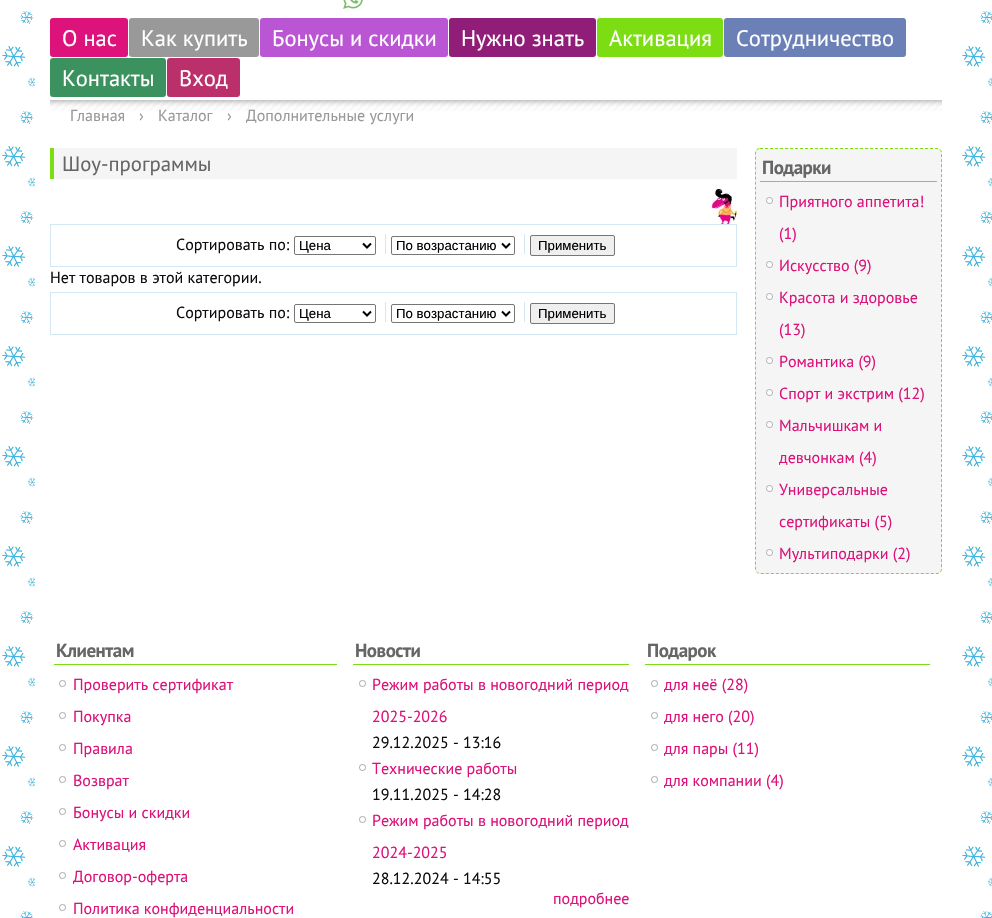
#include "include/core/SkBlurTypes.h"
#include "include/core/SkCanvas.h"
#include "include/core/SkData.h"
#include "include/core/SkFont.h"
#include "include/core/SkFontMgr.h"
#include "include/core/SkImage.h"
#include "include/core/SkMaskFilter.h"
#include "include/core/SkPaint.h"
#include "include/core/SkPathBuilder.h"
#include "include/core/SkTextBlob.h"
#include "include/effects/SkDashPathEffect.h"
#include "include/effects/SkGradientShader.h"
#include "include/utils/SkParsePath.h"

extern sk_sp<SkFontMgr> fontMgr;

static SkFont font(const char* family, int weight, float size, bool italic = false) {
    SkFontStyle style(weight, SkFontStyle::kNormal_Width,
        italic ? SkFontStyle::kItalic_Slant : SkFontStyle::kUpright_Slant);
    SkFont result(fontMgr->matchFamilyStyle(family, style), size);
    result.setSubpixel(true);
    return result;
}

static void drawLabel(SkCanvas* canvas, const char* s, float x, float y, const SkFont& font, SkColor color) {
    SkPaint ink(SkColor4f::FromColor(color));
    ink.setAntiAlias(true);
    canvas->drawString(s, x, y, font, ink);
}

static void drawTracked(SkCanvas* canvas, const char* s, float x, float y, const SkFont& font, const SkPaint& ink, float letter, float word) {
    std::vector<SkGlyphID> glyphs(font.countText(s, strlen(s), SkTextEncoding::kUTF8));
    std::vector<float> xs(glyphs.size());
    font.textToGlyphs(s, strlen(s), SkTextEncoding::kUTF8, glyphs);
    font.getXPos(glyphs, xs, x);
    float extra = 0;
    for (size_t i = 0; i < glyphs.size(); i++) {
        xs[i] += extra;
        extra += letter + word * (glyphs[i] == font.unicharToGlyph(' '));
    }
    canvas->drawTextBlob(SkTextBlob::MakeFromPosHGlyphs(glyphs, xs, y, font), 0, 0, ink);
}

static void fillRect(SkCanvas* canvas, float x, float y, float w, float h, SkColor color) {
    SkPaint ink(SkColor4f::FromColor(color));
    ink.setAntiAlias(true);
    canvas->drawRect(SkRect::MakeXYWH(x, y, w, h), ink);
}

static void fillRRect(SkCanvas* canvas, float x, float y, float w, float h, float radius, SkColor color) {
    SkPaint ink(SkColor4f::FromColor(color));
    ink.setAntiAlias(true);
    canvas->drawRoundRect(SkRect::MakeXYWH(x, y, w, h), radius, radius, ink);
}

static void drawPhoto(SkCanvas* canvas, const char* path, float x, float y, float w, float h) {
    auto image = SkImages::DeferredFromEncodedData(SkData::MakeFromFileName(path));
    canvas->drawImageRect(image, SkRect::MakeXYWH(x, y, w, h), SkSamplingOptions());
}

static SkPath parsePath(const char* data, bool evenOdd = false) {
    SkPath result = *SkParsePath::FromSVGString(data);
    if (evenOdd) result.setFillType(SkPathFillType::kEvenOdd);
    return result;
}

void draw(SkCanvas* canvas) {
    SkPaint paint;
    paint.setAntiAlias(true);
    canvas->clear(0xFFFFFFFF);
    drawPhoto(canvas, "assets/img1.png", 2, 11, 990, 907);
    fillRect(canvas, 35, 11, 922, 907, 0xFFFFFFFF);
    drawPhoto(canvas, "assets/img2.png", 343, 0, 20, 9);
    fillRRect(canvas, 50, 18, 78, 39, 3, 0xFFDD127B);
    SkFont font1 = font("PT Sans", 400, 22.5f);
    drawLabel(canvas, "О нас", 62, 46, font1, 0xFFFFFFFF);
    fillRRect(canvas, 129, 18, 130, 39, 3, 0xFF999999);
    drawLabel(canvas, "Как купить", 141, 46, font1, 0xFFFFFFFF);
    fillRRect(canvas, 260, 18, 188, 39, 3, 0xFFBA55D3);
    drawLabel(canvas, "Бонусы и скидки", 272, 46, font1, 0xFFFFFFFF);
    fillRRect(canvas, 449, 18, 147, 39, 3, 0xFF901D78);
    drawLabel(canvas, "Нужно знать", 461, 46, font1, 0xFFFFFFFF);
    fillRRect(canvas, 597, 18, 126, 39, 3, 0xFF7BDD12);
    drawLabel(canvas, "Активация", 609, 46, font1, 0xFFFFFFFF);
    fillRRect(canvas, 724, 18, 182, 39, 3, 0xFF6B80B7);
    drawLabel(canvas, "Сотрудничество", 736, 46, font1, 0xFFFFFFFF);
    fillRRect(canvas, 50, 58, 116, 39, 3, 0xFF3B925E);
    drawLabel(canvas, "Контакты", 62, 86, font1, 0xFFFFFFFF);
    fillRRect(canvas, 167, 58, 73, 39, 3, 0xFFBB306B);
    drawLabel(canvas, "Вход", 179, 86, font1, 0xFFFFFFFF);
    drawPhoto(canvas, "assets/img3.png", 50, 100, 892, 11);
    SkFont font2 = font("PT Sans", 400, 16);
    drawLabel(canvas, "Главная", 70, 121, font2, 0xFF999999);
    drawLabel(canvas, "›", 139, 121, font2, 0xFF999999);
    drawLabel(canvas, "Каталог", 158, 121, font2, 0xFF999999);
    drawLabel(canvas, "›", 227, 121, font2, 0xFF999999);
    drawLabel(canvas, "Дополнительные услуги", 246, 121, font2, 0xFF999999);
    fillRect(canvas, 54, 148, 683, 31, 0xFFF5F5F5);
    fillRect(canvas, 50, 148, 4, 31, 0xFF7BDD12);
    SkFont font3 = font("PT Sans", 400, 20.75f);
    drawLabel(canvas, "Шоу-программы", 62, 171, font3, 0xFF666666);
    drawPhoto(canvas, "assets/img4.png", 712, 189, 25, 35);
    paint.setStroke(true);
    paint.setStrokeWidth(1);
    paint.setColor(0xFFD3E7F4);
    canvas->drawRect(SkRect::MakeXYWH(50.5f, 224.5f, 686, 42), paint);
    fillRect(canvas, 385, 234, 1, 20, 0xFFD3E7F4);
    drawLabel(canvas, "Сортировать по:", 176, 250, font2, 0xFF0E0E0E);
    paint.setColor(0xFF767676);
    canvas->drawRoundRect(SkRect::MakeXYWH(294.5f, 236.5f, 81, 18), 1.5f, 1.5f, paint);
    paint.setStrokeWidth(2);
    paint.setColor(0xFF000000);
    canvas->drawPath(parsePath("M363 243.5L367 247.5L371 243.5"), paint);
    SkFont font4 = font("Liberation Sans", 400, 13.25f);
    drawLabel(canvas, "Цена", 299, 250, font4, 0xFF000000);
    fillRect(canvas, 524, 234, 1, 20, 0xFFD3E7F4);
    paint.setStrokeWidth(1);
    paint.setColor(0xFF767676);
    canvas->drawRoundRect(SkRect::MakeXYWH(391.5f, 236.5f, 123, 18), 1.5f, 1.5f, paint);
    paint.setStrokeWidth(2);
    paint.setColor(0xFF000000);
    canvas->drawPath(parsePath("M502 243.5L506 247.5L510 243.5"), paint);
    drawLabel(canvas, "По возрастанию", 396, 250, font4, 0xFF000000);
    paint.setStroke(false);
    paint.setColor(0xFFEFEFEF);
    canvas->drawRoundRect(SkRect::MakeXYWH(530.5f, 235.5f, 84, 20), 1.5f, 1.5f, paint);
    paint.setStroke(true);
    paint.setStrokeWidth(1);
    paint.setColor(0xFF767676);
    canvas->drawRoundRect(SkRect::MakeXYWH(530.5f, 235.5f, 84, 20), 1.5f, 1.5f, paint);
    drawLabel(canvas, "Применить", 538, 250, font4, 0xFF000000);
    drawLabel(canvas, "Нет товаров в этой категории.", 50, 283, font2, 0xFF0E0E0E);
    paint.setColor(0xFFD3E7F4);
    canvas->drawRect(SkRect::MakeXYWH(50.5f, 292.5f, 686, 42), paint);
    fillRect(canvas, 385, 302, 1, 20, 0xFFD3E7F4);
    drawLabel(canvas, "Сортировать по:", 176, 318, font2, 0xFF0E0E0E);
    paint.setColor(0xFF767676);
    canvas->drawRoundRect(SkRect::MakeXYWH(294.5f, 304.5f, 81, 18), 1.5f, 1.5f, paint);
    paint.setStrokeWidth(2);
    paint.setColor(0xFF000000);
    canvas->drawPath(parsePath("M363 311.5L367 315.5L371 311.5"), paint);
    drawLabel(canvas, "Цена", 299, 318, font4, 0xFF000000);
    fillRect(canvas, 524, 302, 1, 20, 0xFFD3E7F4);
    paint.setStrokeWidth(1);
    paint.setColor(0xFF767676);
    canvas->drawRoundRect(SkRect::MakeXYWH(391.5f, 304.5f, 123, 18), 1.5f, 1.5f, paint);
    paint.setStrokeWidth(2);
    paint.setColor(0xFF000000);
    canvas->drawPath(parsePath("M502 311.5L506 315.5L510 311.5"), paint);
    drawLabel(canvas, "По возрастанию", 396, 318, font4, 0xFF000000);
    paint.setStroke(false);
    paint.setColor(0xFFEFEFEF);
    canvas->drawRoundRect(SkRect::MakeXYWH(530.5f, 303.5f, 84, 20), 1.5f, 1.5f, paint);
    paint.setStroke(true);
    paint.setStrokeWidth(1);
    paint.setColor(0xFF767676);
    canvas->drawRoundRect(SkRect::MakeXYWH(530.5f, 303.5f, 84, 20), 1.5f, 1.5f, paint);
    drawLabel(canvas, "Применить", 538, 318, font4, 0xFF000000);
    fillRRect(canvas, 755, 148, 187, 426, 5, 0xFFF5F5F5);
    paint.setColor(0xFF7BDD12);
    paint.setPathEffect(SkDashPathEffect::Make({{3, 2}}, 0));
    canvas->drawPath(parsePath("M760 148.5H937C939.5 148.5 941.5 150.5 941.5 153V569C941.5 571.5 939.5 573.5 937 573.5H760C757.5 573.5 755.5 571.5 755.5 569V153C755.5 150.5 757.5 148.5 760 148.5Z"), paint);
    paint.setPathEffect(nullptr);
    fillRect(canvas, 760, 181, 177, 1, 0xFF7BDD12);
    SkFont font5 = font("PT Sans", 700, 19);
    paint.setStroke(false);
    paint.setColor(0xFF666666);
    drawTracked(canvas, "Подарки", 762, 174, font5, paint, -0.5f, 0);
    drawPhoto(canvas, "assets/img5.png", 766, 197, 7, 7);
    drawLabel(canvas, "Приятного аппетита!", 779, 207, font2, 0xFFDD127B);
    drawLabel(canvas, "(1)", 779, 239, font2, 0xFFDD127B);
    drawPhoto(canvas, "assets/img5.png", 766, 261, 7, 7);
    drawLabel(canvas, "Искусство (9)", 779, 271, font2, 0xFFDD127B);
    drawPhoto(canvas, "assets/img5.png", 766, 293, 7, 7);
    drawLabel(canvas, "Красота и здоровье", 779, 303, font2, 0xFFDD127B);
    drawLabel(canvas, "(13)", 779, 335, font2, 0xFFDD127B);
    drawPhoto(canvas, "assets/img5.png", 766, 357, 7, 7);
    drawLabel(canvas, "Романтика (9)", 779, 367, font2, 0xFFDD127B);
    drawPhoto(canvas, "assets/img5.png", 766, 389, 7, 7);
    drawLabel(canvas, "Спорт и экстрим (12)", 779, 399, font2, 0xFFDD127B);
    drawPhoto(canvas, "assets/img5.png", 766, 421, 7, 7);
    drawLabel(canvas, "Мальчишкам и", 779, 431, font2, 0xFFDD127B);
    drawLabel(canvas, "девчонкам (4)", 779, 463, font2, 0xFFDD127B);
    drawPhoto(canvas, "assets/img5.png", 766, 485, 7, 7);
    drawLabel(canvas, "Универсальные", 779, 495, font2, 0xFFDD127B);
    drawLabel(canvas, "сертификаты (5)", 779, 527, font2, 0xFFDD127B);
    drawPhoto(canvas, "assets/img5.png", 766, 549, 7, 7);
    drawLabel(canvas, "Мультиподарки (2)", 779, 559, font2, 0xFFDD127B);
    fillRect(canvas, 54, 664, 283, 1, 0xFF7BDD12);
    drawTracked(canvas, "Клиентам", 56, 657, font5, paint, -0.5f, 0);
    drawPhoto(canvas, "assets/img6.png", 59, 680, 7, 7);
    drawLabel(canvas, "Проверить сертификат", 73, 690, font2, 0xFFDD127B);
    drawPhoto(canvas, "assets/img6.png", 59, 712, 7, 7);
    drawLabel(canvas, "Покупка", 73, 722, font2, 0xFFDD127B);
    drawPhoto(canvas, "assets/img6.png", 59, 744, 7, 7);
    drawLabel(canvas, "Правила", 73, 754, font2, 0xFFDD127B);
    drawPhoto(canvas, "assets/img6.png", 59, 776, 7, 7);
    drawLabel(canvas, "Возврат", 73, 786, font2, 0xFFDD127B);
    drawPhoto(canvas, "assets/img6.png", 59, 808, 7, 7);
    drawLabel(canvas, "Бонусы и скидки", 73, 818, font2, 0xFFDD127B);
    drawPhoto(canvas, "assets/img6.png", 59, 840, 7, 7);
    drawLabel(canvas, "Активация", 73, 850, font2, 0xFFDD127B);
    drawPhoto(canvas, "assets/img6.png", 59, 872, 7, 7);
    drawLabel(canvas, "Договор-оферта", 73, 882, font2, 0xFFDD127B);
    drawPhoto(canvas, "assets/img6.png", 59, 904, 7, 7);
    drawLabel(canvas, "Политика конфиденциальности", 73, 914, font2, 0xFFDD127B);
    fillRect(canvas, 353, 664, 276, 1, 0xFF7BDD12);
    drawTracked(canvas, "Новости", 355, 657, font5, paint, -0.5f, 0);
    drawPhoto(canvas, "assets/img6.png", 359, 680, 7, 7);
    drawLabel(canvas, "Режим работы в новогодний период", 372, 690, font2, 0xFFDD127B);
    drawLabel(canvas, "2025-2026", 372, 722, font2, 0xFFDD127B);
    drawLabel(canvas, "29.12.2025 - 13:16", 372, 748, font2, 0xFF0E0E0E);
    drawPhoto(canvas, "assets/img6.png", 359, 764, 7, 7);
    drawLabel(canvas, "Технические работы", 372, 774, font2, 0xFFDD127B);
    drawLabel(canvas, "19.11.2025 - 14:28", 372, 800, font2, 0xFF0E0E0E);
    drawPhoto(canvas, "assets/img6.png", 359, 816, 7, 7);
    drawLabel(canvas, "Режим работы в новогодний период", 372, 826, font2, 0xFFDD127B);
    drawLabel(canvas, "2024-2025", 372, 858, font2, 0xFFDD127B);
    drawLabel(canvas, "28.12.2024 - 14:55", 372, 884, font2, 0xFF0E0E0E);
    drawLabel(canvas, "подробнее", 553, 904, font2, 0xFFDD127B);
    fillRect(canvas, 645, 664, 285, 1, 0xFF7BDD12);
    drawTracked(canvas, "Подарок", 647, 657, font5, paint, -0.5f, 0);
    drawPhoto(canvas, "assets/img6.png", 651, 680, 7, 7);
    drawLabel(canvas, "для неё (28)", 664, 690, font2, 0xFFDD127B);
    drawPhoto(canvas, "assets/img6.png", 651, 712, 7, 7);
    drawLabel(canvas, "для него (20)", 664, 722, font2, 0xFFDD127B);
    drawPhoto(canvas, "assets/img6.png", 651, 744, 7, 7);
    drawLabel(canvas, "для пары (11)", 664, 754, font2, 0xFFDD127B);
    drawPhoto(canvas, "assets/img6.png", 651, 776, 7, 7);
    drawLabel(canvas, "для компании (4)", 664, 786, font2, 0xFFDD127B);
}
